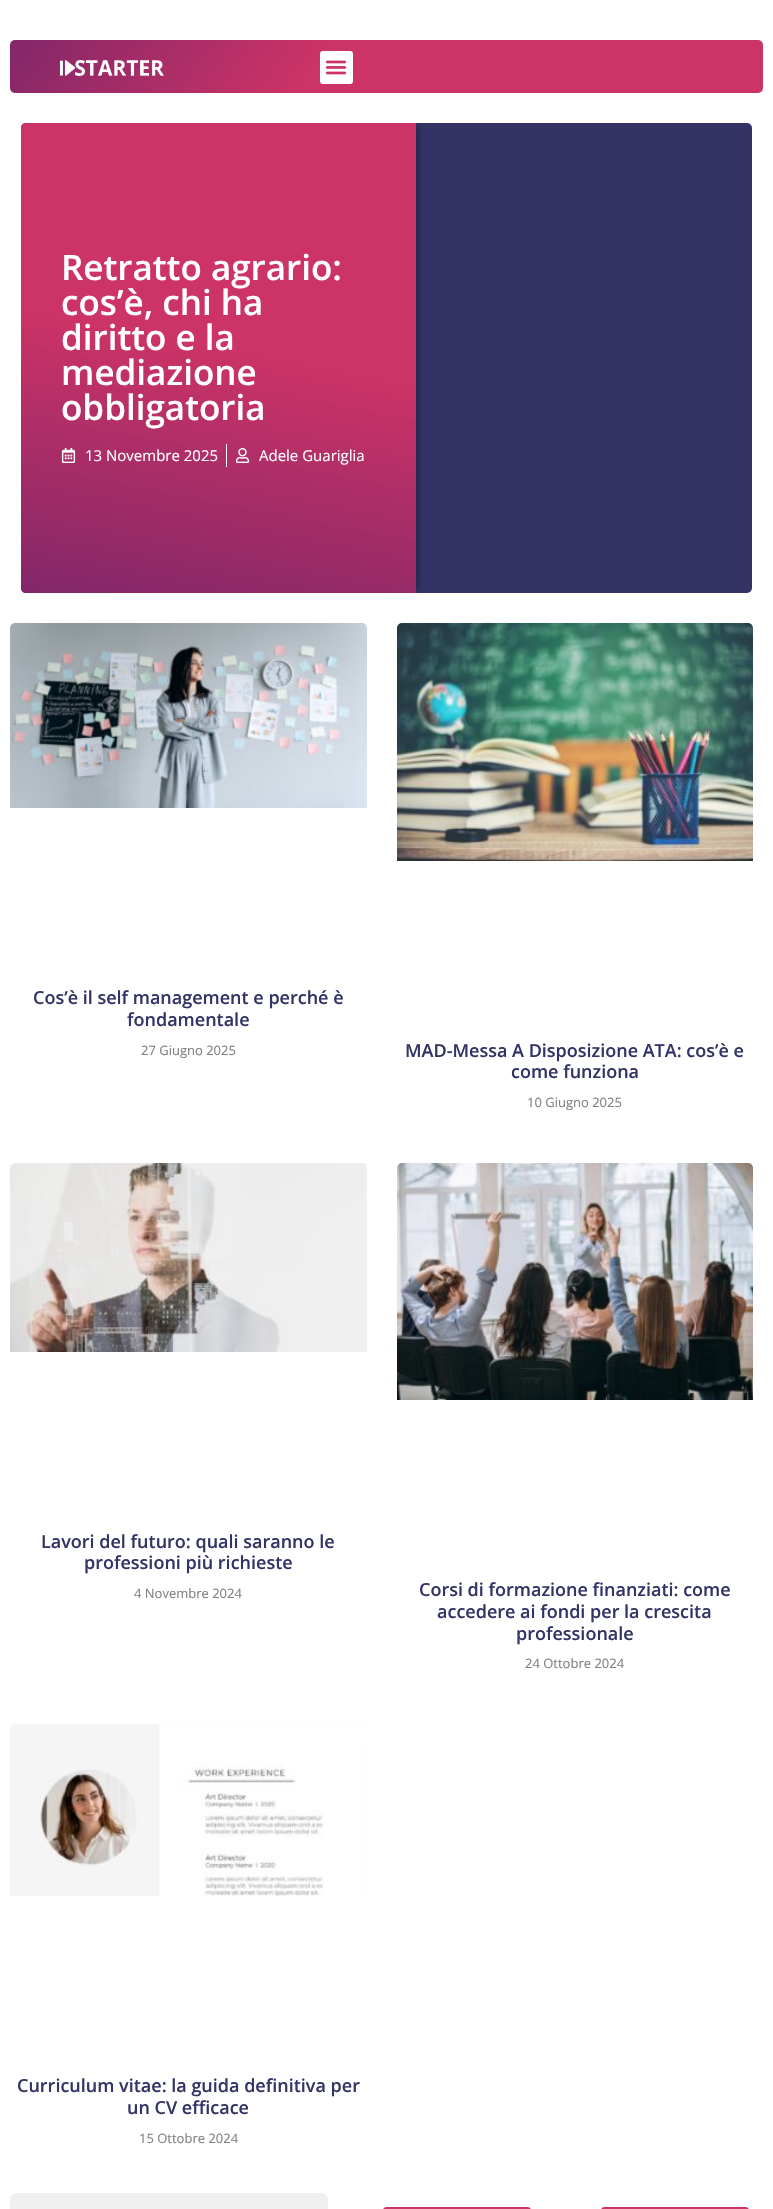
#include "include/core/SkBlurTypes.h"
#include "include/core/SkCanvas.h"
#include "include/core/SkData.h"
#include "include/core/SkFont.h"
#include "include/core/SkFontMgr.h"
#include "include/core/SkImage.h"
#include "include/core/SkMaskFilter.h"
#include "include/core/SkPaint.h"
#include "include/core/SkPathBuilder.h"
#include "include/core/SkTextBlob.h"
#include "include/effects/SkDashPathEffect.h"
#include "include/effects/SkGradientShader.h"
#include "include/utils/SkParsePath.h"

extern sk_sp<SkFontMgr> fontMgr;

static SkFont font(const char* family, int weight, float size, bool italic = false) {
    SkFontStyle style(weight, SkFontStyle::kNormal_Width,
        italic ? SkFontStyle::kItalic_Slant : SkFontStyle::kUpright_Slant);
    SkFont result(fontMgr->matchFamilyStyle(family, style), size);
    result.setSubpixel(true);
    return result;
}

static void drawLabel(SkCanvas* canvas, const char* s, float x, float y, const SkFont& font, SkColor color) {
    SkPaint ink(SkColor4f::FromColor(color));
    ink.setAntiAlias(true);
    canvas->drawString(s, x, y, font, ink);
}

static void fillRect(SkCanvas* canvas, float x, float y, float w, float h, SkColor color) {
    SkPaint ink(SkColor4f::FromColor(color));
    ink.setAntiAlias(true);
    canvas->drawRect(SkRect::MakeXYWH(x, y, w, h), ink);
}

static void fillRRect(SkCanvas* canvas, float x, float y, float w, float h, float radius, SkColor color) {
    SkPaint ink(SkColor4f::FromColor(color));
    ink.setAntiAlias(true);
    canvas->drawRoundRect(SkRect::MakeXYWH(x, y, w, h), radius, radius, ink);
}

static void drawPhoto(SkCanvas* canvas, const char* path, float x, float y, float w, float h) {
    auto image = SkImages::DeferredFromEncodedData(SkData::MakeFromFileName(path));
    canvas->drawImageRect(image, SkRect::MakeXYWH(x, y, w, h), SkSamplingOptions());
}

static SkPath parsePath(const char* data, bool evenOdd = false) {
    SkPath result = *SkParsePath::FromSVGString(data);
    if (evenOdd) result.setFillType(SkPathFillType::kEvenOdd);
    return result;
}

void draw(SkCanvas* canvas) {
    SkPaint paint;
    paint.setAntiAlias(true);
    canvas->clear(0xFFFFFFFF);
    {
        const SkColor colors[] = {0xFFCC3366, 0xFF832769};
        const float stops[] = {0.59f, 1};
        const SkPoint ends[] = {{652, 252}, {121, -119}};
        paint.setShader(SkGradientShader::MakeLinear(ends, colors, stops, 2, SkTileMode::kClamp));
        paint.setAlpha(255);
    }
    canvas->drawRoundRect(SkRect::MakeXYWH(10, 40, 753, 53), 5, 5, paint);
    drawPhoto(canvas, "assets/img1.png", 60, 60, 104, 16);
    fillRRect(canvas, 320, 51, 33, 33, 3, 0xFFFFFFFF);
    drawPhoto(canvas, "assets/img2.png", 325, 60, 22, 15);
    fillRRect(canvas, 21, 123, 731, 470, 5, 0xFF333366);
    canvas->save();
    canvas->clipPath(parsePath("M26 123H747C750 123 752 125 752 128V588C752 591 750 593 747 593H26C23 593 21 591 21 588V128C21 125 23 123 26 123Z"), true);
    paint.setShader(nullptr);
    paint.setColor(0x57000000);
    paint.setMaskFilter(SkMaskFilter::MakeBlur(kNormal_SkBlurStyle, 3.5f));
    canvas->drawRoundRect(SkRect::MakeXYWH(29, 125, 389, 464), 2, 2, paint);
    paint.setMaskFilter(nullptr);
    canvas->restore();
    {
        const SkColor colors[] = {0xFFCC3366, 0xFF832769};
        const float stops[] = {0.48f, 1};
        const SkPoint ends[] = {{270, 95}, {167, 621}};
        paint.setShader(SkGradientShader::MakeLinear(ends, colors, stops, 2, SkTileMode::kClamp));
        paint.setAlpha(255);
    }
    canvas->drawPath(parsePath("M26 123H416V593H26C23 593 21 591 21 588V128C21 125 23 123 26 123Z"), paint);
    SkFont font1 = font("Open Sans", 600, 35);
    drawLabel(canvas, "Retratto agrario:", 61, 280, font1, 0xFFFFFFFF);
    drawLabel(canvas, "cos’è, chi ha", 61, 315, font1, 0xFFFFFFFF);
    drawLabel(canvas, "diritto e la", 61, 350, font1, 0xFFFFFFFF);
    drawLabel(canvas, "mediazione", 61, 385, font1, 0xFFFFFFFF);
    drawLabel(canvas, "obbligatoria", 61, 420, font1, 0xFFFFFFFF);
    drawPhoto(canvas, "assets/img3.png", 61, 448, 15, 15);
    SkFont font2 = font("Open Sans", 400, 15);
    drawLabel(canvas, "13 Novembre 2025", 85, 461, font2, 0xFFFFFFFF);
    fillRect(canvas, 226, 444, 1, 23, 0xFFFFFFFF);
    drawPhoto(canvas, "assets/img4.png", 235, 448, 15, 15);
    drawLabel(canvas, "Adele Guariglia", 259, 461, font2, 0xFFFFFFFF);
    drawPhoto(canvas, "assets/img5.png", 10, 623, 357, 185);
    SkFont font3 = font("Open Sans", 600, 18);
    drawLabel(canvas, "Cos’è il self management e perché è", 33, 1004, font3, 0xFF333366);
    drawLabel(canvas, "fondamentale", 127, 1026, font3, 0xFF333366);
    SkFont font4 = font("Open Sans", 400, 13);
    drawLabel(canvas, "27 Giugno 2025", 141, 1055, font4, 0xFF808080);
    drawPhoto(canvas, "assets/img6.png", 397, 623, 356, 238);
    drawLabel(canvas, "MAD-Messa A Disposizione ATA: cos’è e", 405, 1057, font3, 0xFF333366);
    drawLabel(canvas, "come funziona", 511, 1078, font3, 0xFF333366);
    drawLabel(canvas, "10 Giugno 2025", 527, 1107, font4, 0xFF808080);
    drawPhoto(canvas, "assets/img7.png", 10, 1163, 357, 189);
    drawLabel(canvas, "Lavori del futuro: quali saranno le", 41, 1548, font3, 0xFF333366);
    drawLabel(canvas, "professioni più richieste", 84, 1569, font3, 0xFF333366);
    drawLabel(canvas, "4 Novembre 2024", 134, 1598, font4, 0xFF808080);
    drawPhoto(canvas, "assets/img8.png", 397, 1163, 356, 237);
    drawLabel(canvas, "Corsi di formazione finanziati: come", 419, 1596, font3, 0xFF333366);
    drawLabel(canvas, "accedere ai fondi per la crescita", 437, 1618, font3, 0xFF333366);
    drawLabel(canvas, "professionale", 516, 1640, font3, 0xFF333366);
    drawLabel(canvas, "24 Ottobre 2024", 525, 1668, font4, 0xFF808080);
    drawPhoto(canvas, "assets/img9.png", 10, 1724, 354, 172);
    drawLabel(canvas, "Curriculum vitae: la guida definitiva per", 17, 2092, font3, 0xFF333366);
    drawLabel(canvas, "un CV efficace", 127, 2114, font3, 0xFF333366);
    drawLabel(canvas, "15 Ottobre 2024", 139, 2143, font4, 0xFF808080);
    fillRRect(canvas, 10, 2193, 318, 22, 6, 0xFFF0F0F0);
    fillRRect(canvas, 383, 2207, 148, 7, 5, 0xFFCC3366);
    fillRRect(canvas, 601, 2207, 148, 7, 5, 0xFFCC3366);
}
